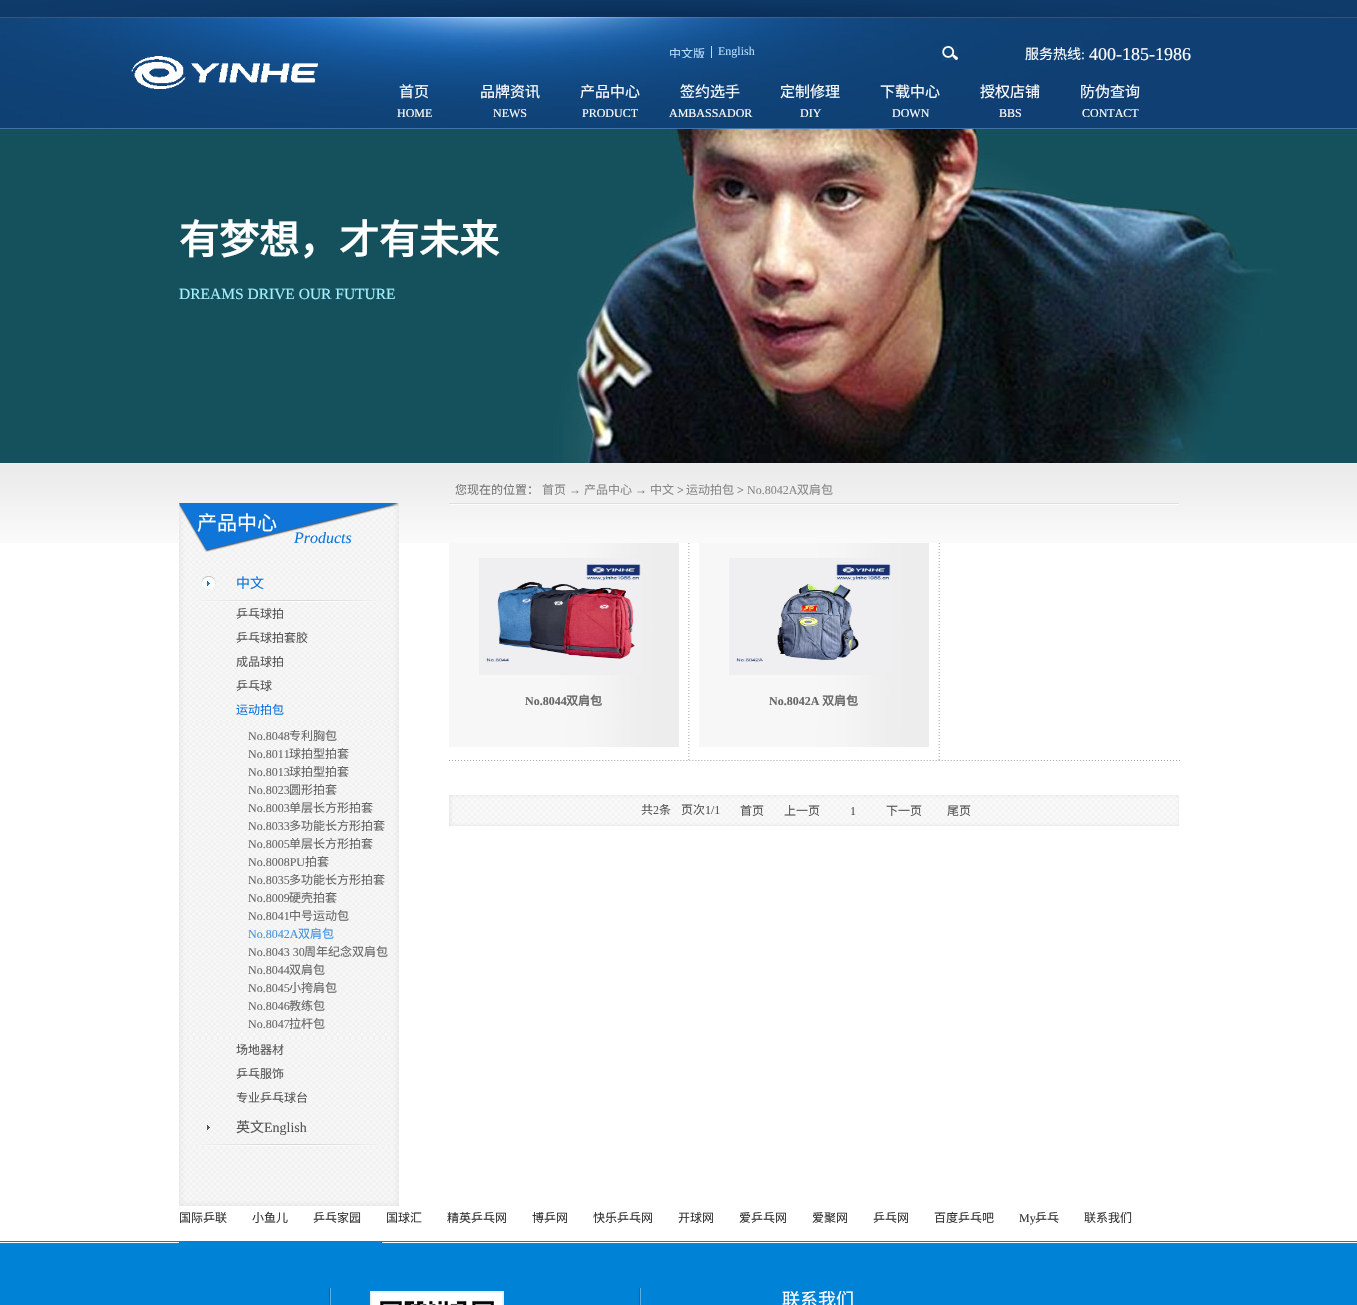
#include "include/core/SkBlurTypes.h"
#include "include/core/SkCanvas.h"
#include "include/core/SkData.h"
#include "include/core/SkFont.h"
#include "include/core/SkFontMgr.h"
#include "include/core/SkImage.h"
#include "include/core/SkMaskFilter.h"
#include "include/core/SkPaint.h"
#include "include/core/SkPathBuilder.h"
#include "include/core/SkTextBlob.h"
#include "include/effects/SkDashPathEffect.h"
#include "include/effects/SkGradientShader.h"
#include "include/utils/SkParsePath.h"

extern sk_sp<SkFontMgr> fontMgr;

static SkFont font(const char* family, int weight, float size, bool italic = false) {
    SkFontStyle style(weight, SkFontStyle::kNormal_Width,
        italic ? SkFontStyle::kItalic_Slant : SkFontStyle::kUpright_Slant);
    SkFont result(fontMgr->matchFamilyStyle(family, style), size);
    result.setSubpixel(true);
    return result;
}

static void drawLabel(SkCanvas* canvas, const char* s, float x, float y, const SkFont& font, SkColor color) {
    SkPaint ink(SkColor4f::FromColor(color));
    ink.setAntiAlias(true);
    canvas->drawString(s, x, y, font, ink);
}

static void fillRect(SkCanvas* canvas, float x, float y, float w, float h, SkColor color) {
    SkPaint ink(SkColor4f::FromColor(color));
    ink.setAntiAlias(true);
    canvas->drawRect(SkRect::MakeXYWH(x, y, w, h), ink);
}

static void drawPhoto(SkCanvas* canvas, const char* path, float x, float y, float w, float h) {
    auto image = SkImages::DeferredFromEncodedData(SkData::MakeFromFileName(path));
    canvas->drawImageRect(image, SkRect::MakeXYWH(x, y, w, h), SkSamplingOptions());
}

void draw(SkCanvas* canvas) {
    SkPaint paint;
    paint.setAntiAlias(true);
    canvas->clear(0xFFFFFFFF);
    drawPhoto(canvas, "assets/img1.png", 0, 0, 1357, 129);
    drawPhoto(canvas, "assets/img2.png", 131, 56, 187, 33);
    canvas->save();
    canvas->clipRect(SkRect::MakeXYWH(663, 46, 92, 12));
    SkFont font1 = font("Noto Sans CJK SC", 400, 12);
    drawLabel(canvas, "中文版", 669, 58, font1, 0xFFB7DBFF);
    canvas->restore();
    fillRect(canvas, 711, 46, 1, 12, 0xFFB7DBFF);
    SkFont font2 = font("Liberation Serif", 400, 12);
    drawLabel(canvas, "English", 718, 55, font2, 0xFFB7DBFF);
    drawPhoto(canvas, "assets/img3.png", 942, 46, 16, 15);
    SkFont font3 = font("Noto Sans CJK SC", 400, 14);
    drawLabel(canvas, "服务热线", 1025, 59, font3, 0xFFFFFFFF);
    SkFont font4 = font("Liberation Serif", 400, 14);
    drawLabel(canvas, ":", 1081, 59, font4, 0xFFFFFFFF);
    SkFont font5 = font("Liberation Serif", 400, 18);
    drawLabel(canvas, "400-185-1986", 1089, 60, font5, 0xFFFFFFFF);
    SkFont font6 = font("Noto Sans CJK SC", 400, 15);
    drawLabel(canvas, "首页", 399, 97, font6, 0xFFFFFFFF);
    drawLabel(canvas, "HOME", 397, 117, font2, 0xFFFFFFFF);
    drawLabel(canvas, "品牌资讯", 480, 97, font6, 0xFFFFFFFF);
    drawLabel(canvas, "NEWS", 493, 117, font2, 0xFFFFFFFF);
    drawLabel(canvas, "产品中心", 580, 97, font6, 0xFFFFFFFF);
    drawLabel(canvas, "PRODUCT", 582, 117, font2, 0xFFFFFFFF);
    drawLabel(canvas, "签约选手", 680, 97, font6, 0xFFFFFFFF);
    drawLabel(canvas, "AMBASSADOR", 669, 117, font2, 0xFFFFFFFF);
    drawLabel(canvas, "定制修理", 780, 97, font6, 0xFFFFFFFF);
    drawLabel(canvas, "DIY", 800, 117, font2, 0xFFFFFFFF);
    drawLabel(canvas, "下载中心", 880, 97, font6, 0xFFFFFFFF);
    drawLabel(canvas, "DOWN", 892, 117, font2, 0xFFFFFFFF);
    drawLabel(canvas, "授权店铺", 980, 97, font6, 0xFFFFFFFF);
    drawLabel(canvas, "BBS", 999, 117, font2, 0xFFFFFFFF);
    drawLabel(canvas, "防伪查询", 1080, 97, font6, 0xFFFFFFFF);
    drawLabel(canvas, "CONTACT", 1082, 117, font2, 0xFFFFFFFF);
    drawPhoto(canvas, "assets/img4.png", 0, 129, 1357, 334);
    SkFont font7 = font("Noto Sans CJK SC", 700, 40);
    drawLabel(canvas, "有梦想，才有未来", 179, 254, font7, 0xFFFFFFFF);
    SkFont font8 = font("Liberation Serif", 400, 15.5f);
    drawLabel(canvas, "DREAMS DRIVE OUR FUTURE", 179, 299, font8, 0xFFA5F0FF);
    drawPhoto(canvas, "assets/img5.png", 0, 463, 1357, 80);
    drawPhoto(canvas, "assets/img6.png", 179, 1146, 220, 60);
    drawPhoto(canvas, "assets/img7.png", 179, 503, 220, 63);
    SkFont font9 = font("Noto Sans CJK SC", 400, 20);
    drawLabel(canvas, "产品中心", 197, 530, font9, 0xFFFFFFFF);
    SkFont font10 = font("Liberation Serif", 400, 16, true);
    drawLabel(canvas, "Products", 294, 543, font10, 0xFF1075D9);
    drawPhoto(canvas, "assets/img8.png", 179, 566, 220, 36);
    drawLabel(canvas, "中文", 236, 588, font3, 0xFF1075D9);
    drawPhoto(canvas, "assets/img9.png", 179, 602, 220, 508);
    drawLabel(canvas, "乒乓球拍", 236, 618, font1, 0xFF555555);
    drawLabel(canvas, "乒乓球拍套胶", 236, 642, font1, 0xFF555555);
    drawLabel(canvas, "成品球拍", 236, 666, font1, 0xFF555555);
    drawLabel(canvas, "乒乓球", 236, 690, font1, 0xFF555555);
    drawLabel(canvas, "运动拍包", 236, 714, font1, 0xFF1075D9);
    drawPhoto(canvas, "assets/img10.png", 179, 722, 220, 316);
    drawLabel(canvas, "No.8048", 248, 740, font2, 0xFF666666);
    drawLabel(canvas, "专利胸包", 289, 740, font1, 0xFF666666);
    drawLabel(canvas, "No.8011", 248, 758, font2, 0xFF666666);
    drawLabel(canvas, "球拍型拍套", 289, 758, font1, 0xFF666666);
    drawLabel(canvas, "No.8013", 248, 776, font2, 0xFF666666);
    drawLabel(canvas, "球拍型拍套", 289, 776, font1, 0xFF666666);
    drawLabel(canvas, "No.8023", 248, 794, font2, 0xFF666666);
    drawLabel(canvas, "圆形拍套", 289, 794, font1, 0xFF666666);
    drawLabel(canvas, "No.8003", 248, 812, font2, 0xFF666666);
    drawLabel(canvas, "单层长方形拍套", 289, 812, font1, 0xFF666666);
    drawLabel(canvas, "No.8033", 248, 830, font2, 0xFF666666);
    drawLabel(canvas, "多功能长方形拍套", 289, 830, font1, 0xFF666666);
    drawLabel(canvas, "No.8005", 248, 848, font2, 0xFF666666);
    drawLabel(canvas, "单层长方形拍套", 289, 848, font1, 0xFF666666);
    drawLabel(canvas, "No.8008PU", 248, 866, font2, 0xFF666666);
    drawLabel(canvas, "拍套", 305, 866, font1, 0xFF666666);
    drawLabel(canvas, "No.8035", 248, 884, font2, 0xFF666666);
    drawLabel(canvas, "多功能长方形拍套", 289, 884, font1, 0xFF666666);
    drawLabel(canvas, "No.8009", 248, 902, font2, 0xFF666666);
    drawLabel(canvas, "硬壳拍套", 289, 902, font1, 0xFF666666);
    drawLabel(canvas, "No.8041", 248, 920, font2, 0xFF666666);
    drawLabel(canvas, "中号运动包", 289, 920, font1, 0xFF666666);
    drawLabel(canvas, "No.8042A", 248, 938, font2, 0xFF4192E1);
    drawLabel(canvas, "双肩包", 298, 938, font1, 0xFF4192E1);
    drawLabel(canvas, "No.8043 30", 248, 956, font2, 0xFF666666);
    drawLabel(canvas, "周年纪念双肩包", 304, 956, font1, 0xFF666666);
    drawLabel(canvas, "No.8044", 248, 974, font2, 0xFF666666);
    drawLabel(canvas, "双肩包", 289, 974, font1, 0xFF666666);
    drawLabel(canvas, "No.8045", 248, 992, font2, 0xFF666666);
    drawLabel(canvas, "小挎肩包", 289, 992, font1, 0xFF666666);
    drawLabel(canvas, "No.8046", 248, 1010, font2, 0xFF666666);
    drawLabel(canvas, "教练包", 289, 1010, font1, 0xFF666666);
    drawLabel(canvas, "No.8047", 248, 1028, font2, 0xFF666666);
    drawLabel(canvas, "拉杆包", 289, 1028, font1, 0xFF666666);
    drawLabel(canvas, "场地器材", 236, 1054, font1, 0xFF555555);
    drawLabel(canvas, "乒乓服饰", 236, 1078, font1, 0xFF555555);
    drawLabel(canvas, "专业乒乓球台", 236, 1102, font1, 0xFF555555);
    drawPhoto(canvas, "assets/img11.png", 179, 1110, 220, 36);
    drawLabel(canvas, "英文", 236, 1132, font3, 0xFF555555);
    drawLabel(canvas, "English", 264, 1132, font4, 0xFF555555);
    drawPhoto(canvas, "assets/img12.png", 449, 503, 730, 2);
    drawLabel(canvas, "您现在的位置：", 455, 494, font1, 0xFF777777);
    drawLabel(canvas, "首页", 542, 494, font1, 0xFF888888);
    drawLabel(canvas, "→", 569, 494, font2, 0xFF777777);
    drawLabel(canvas, "产品中心", 584, 494, font1, 0xFF888888);
    drawLabel(canvas, "→", 635, 494, font2, 0xFF777777);
    drawLabel(canvas, "中文", 650, 494, font1, 0xFF888888);
    drawLabel(canvas, ">", 677, 494, font2, 0xFF777777);
    drawLabel(canvas, "运动拍包", 686, 494, font1, 0xFF888888);
    drawLabel(canvas, ">", 737, 494, font2, 0xFF777777);
    drawLabel(canvas, "No.8042A", 747, 494, font2, 0xFF888888);
    drawLabel(canvas, "双肩包", 797, 494, font1, 0xFF888888);
    drawPhoto(canvas, "assets/img13.png", 449, 543, 731, 218);
    drawPhoto(canvas, "assets/img14.png", 449, 543, 230, 204);
    drawPhoto(canvas, "assets/img15.png", 479, 558, 162, 117);
    SkFont font11 = font("Liberation Serif", 700, 12);
    drawLabel(canvas, "No.8044", 525, 705, font11, 0xFF666666);
    SkFont font12 = font("Noto Sans CJK SC", 700, 12);
    drawLabel(canvas, "双肩包", 566, 705, font12, 0xFF666666);
    drawPhoto(canvas, "assets/img14.png", 699, 543, 230, 204);
    drawPhoto(canvas, "assets/img16.png", 729, 558, 162, 117);
    drawLabel(canvas, "No.8042A", 769, 705, font11, 0xFF666666);
    drawLabel(canvas, "双肩包", 822, 705, font12, 0xFF666666);
    drawPhoto(canvas, "assets/img17.png", 449, 795, 730, 31);
    drawLabel(canvas, "共", 641, 814, font1, 0xFF555555);
    drawLabel(canvas, "2", 653, 814, font2, 0xFF555555);
    drawLabel(canvas, "条", 659, 814, font1, 0xFF555555);
    drawLabel(canvas, "页次", 681, 814, font1, 0xFF555555);
    drawLabel(canvas, "1/1", 705, 814, font2, 0xFF555555);
    drawLabel(canvas, "首页", 740, 815, font1, 0xFF555555);
    drawLabel(canvas, "上一页", 784, 815, font1, 0xFF555555);
    drawLabel(canvas, "1", 850, 815, font2, 0xFF555555);
    drawLabel(canvas, "下一页", 886, 815, font1, 0xFF555555);
    drawLabel(canvas, "尾页", 947, 815, font1, 0xFF555555);
    drawPhoto(canvas, "assets/img18.png", 0, 1241, 1357, 64);
    fillRect(canvas, 179, 1242, 203, 2, 0xFF0083D6);
    drawLabel(canvas, "国际乒联", 179, 1222, font1, 0xFF333333);
    drawLabel(canvas, "小鱼儿", 252, 1222, font1, 0xFF333333);
    drawLabel(canvas, "乒乓家园", 313, 1222, font1, 0xFF333333);
    drawLabel(canvas, "国球汇", 386, 1222, font1, 0xFF333333);
    drawLabel(canvas, "精英乒乓网", 447, 1222, font1, 0xFF333333);
    drawLabel(canvas, "博乒网", 532, 1222, font1, 0xFF333333);
    drawLabel(canvas, "快乐乒乓网", 593, 1222, font1, 0xFF333333);
    drawLabel(canvas, "开球网", 678, 1222, font1, 0xFF333333);
    drawLabel(canvas, "爱乒乓网", 739, 1222, font1, 0xFF333333);
    drawLabel(canvas, "爱聚网", 812, 1222, font1, 0xFF333333);
    drawLabel(canvas, "乒乓网", 873, 1222, font1, 0xFF333333);
    drawLabel(canvas, "百度乒乓吧", 934, 1222, font1, 0xFF333333);
    drawLabel(canvas, "My", 1019, 1222, font2, 0xFF333333);
    drawLabel(canvas, "乒乓", 1035, 1222, font1, 0xFF333333);
    drawLabel(canvas, "联系我们", 1084, 1222, font1, 0xFF333333);
    drawPhoto(canvas, "assets/img19.png", 329, 1288, 312, 17);
    paint.setStroke(true);
    paint.setStrokeWidth(1);
    paint.setColor(0xFFEDEDED);
    canvas->drawRect(SkRect::MakeXYWH(370.5f, 1291.5f, 133, 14), paint);
    drawPhoto(canvas, "assets/img20.png", 371, 1292, 132, 13);
    SkFont font13 = font("Noto Sans CJK SC", 400, 18);
    drawLabel(canvas, "联系我们", 782, 1306, font13, 0xFFFFFFFF);
}
